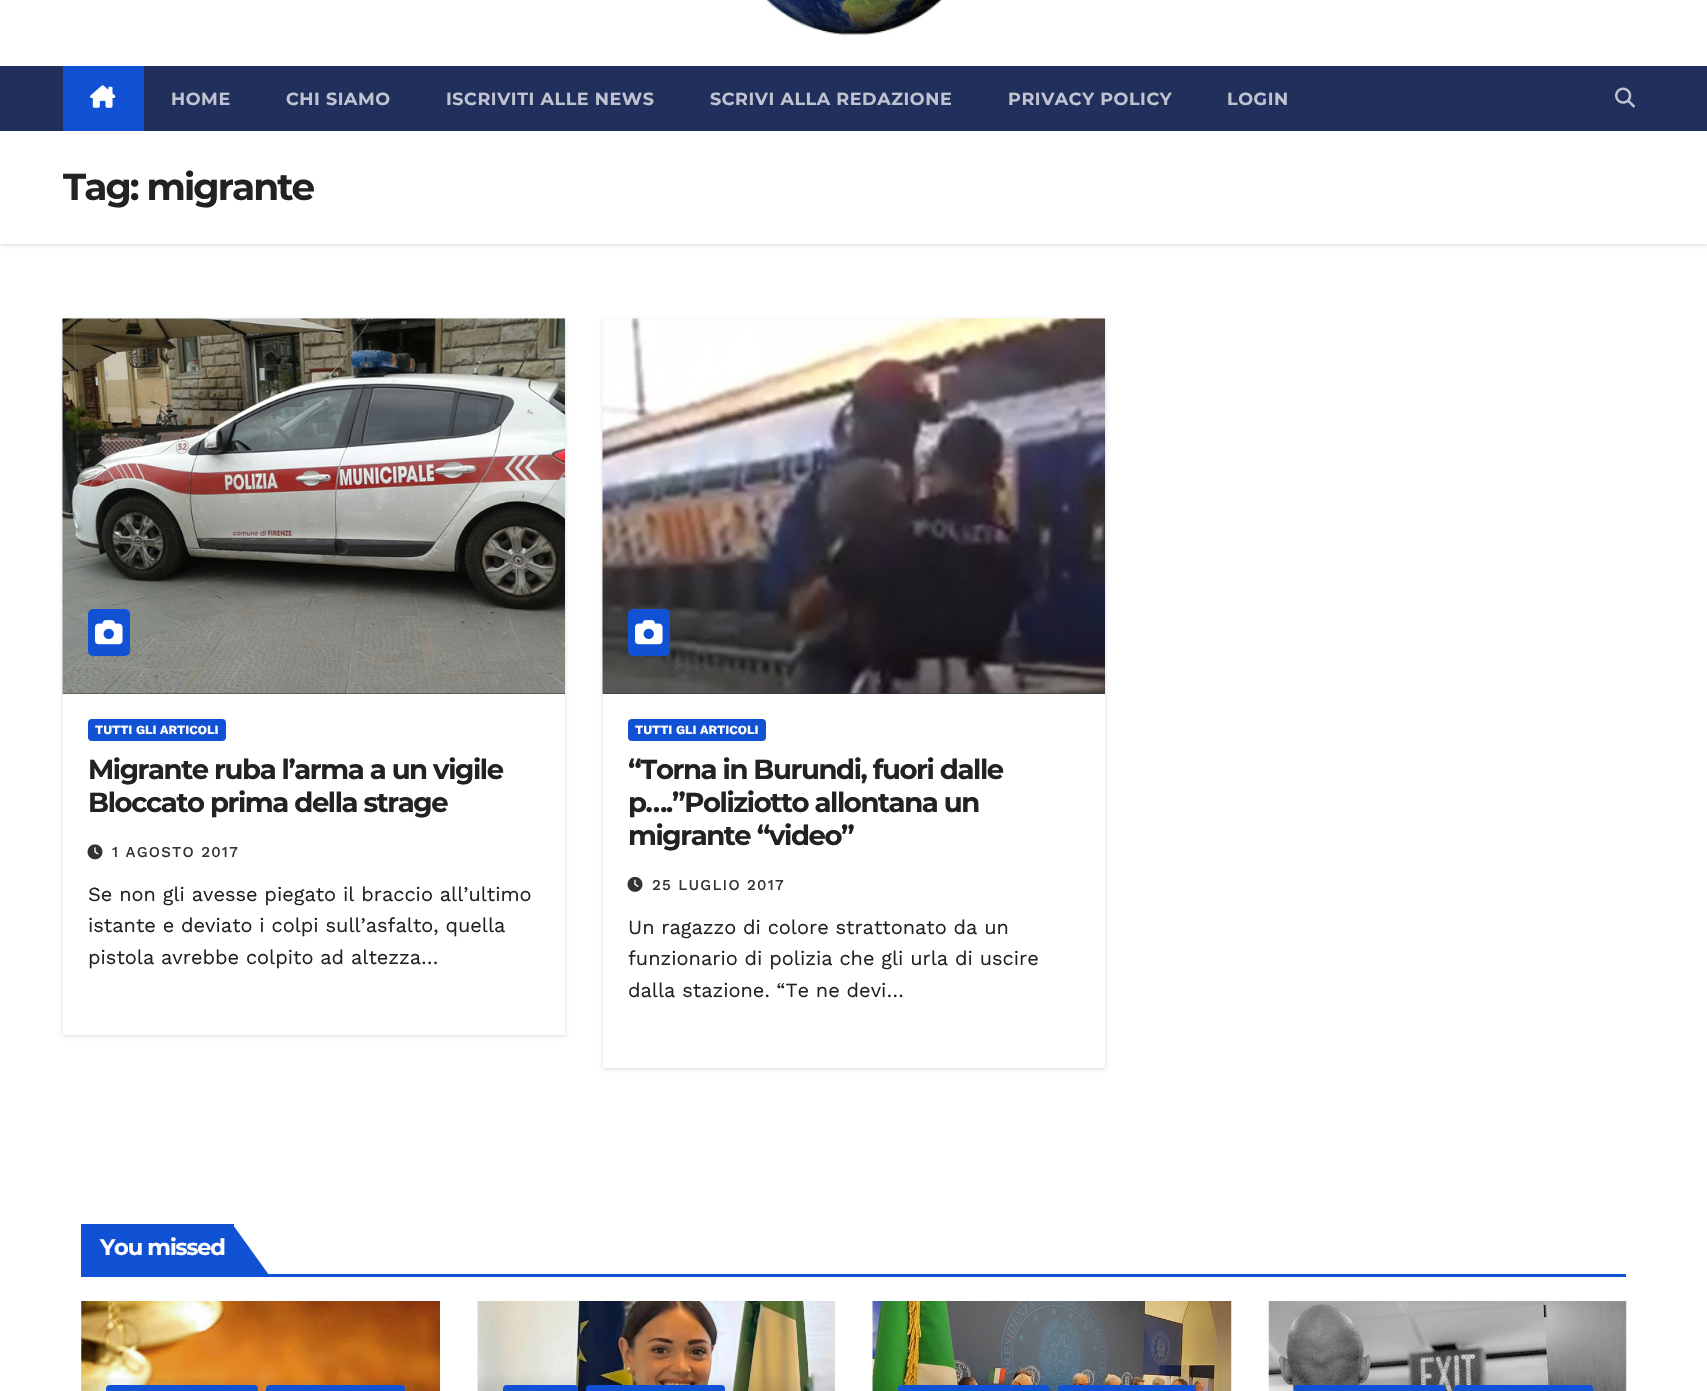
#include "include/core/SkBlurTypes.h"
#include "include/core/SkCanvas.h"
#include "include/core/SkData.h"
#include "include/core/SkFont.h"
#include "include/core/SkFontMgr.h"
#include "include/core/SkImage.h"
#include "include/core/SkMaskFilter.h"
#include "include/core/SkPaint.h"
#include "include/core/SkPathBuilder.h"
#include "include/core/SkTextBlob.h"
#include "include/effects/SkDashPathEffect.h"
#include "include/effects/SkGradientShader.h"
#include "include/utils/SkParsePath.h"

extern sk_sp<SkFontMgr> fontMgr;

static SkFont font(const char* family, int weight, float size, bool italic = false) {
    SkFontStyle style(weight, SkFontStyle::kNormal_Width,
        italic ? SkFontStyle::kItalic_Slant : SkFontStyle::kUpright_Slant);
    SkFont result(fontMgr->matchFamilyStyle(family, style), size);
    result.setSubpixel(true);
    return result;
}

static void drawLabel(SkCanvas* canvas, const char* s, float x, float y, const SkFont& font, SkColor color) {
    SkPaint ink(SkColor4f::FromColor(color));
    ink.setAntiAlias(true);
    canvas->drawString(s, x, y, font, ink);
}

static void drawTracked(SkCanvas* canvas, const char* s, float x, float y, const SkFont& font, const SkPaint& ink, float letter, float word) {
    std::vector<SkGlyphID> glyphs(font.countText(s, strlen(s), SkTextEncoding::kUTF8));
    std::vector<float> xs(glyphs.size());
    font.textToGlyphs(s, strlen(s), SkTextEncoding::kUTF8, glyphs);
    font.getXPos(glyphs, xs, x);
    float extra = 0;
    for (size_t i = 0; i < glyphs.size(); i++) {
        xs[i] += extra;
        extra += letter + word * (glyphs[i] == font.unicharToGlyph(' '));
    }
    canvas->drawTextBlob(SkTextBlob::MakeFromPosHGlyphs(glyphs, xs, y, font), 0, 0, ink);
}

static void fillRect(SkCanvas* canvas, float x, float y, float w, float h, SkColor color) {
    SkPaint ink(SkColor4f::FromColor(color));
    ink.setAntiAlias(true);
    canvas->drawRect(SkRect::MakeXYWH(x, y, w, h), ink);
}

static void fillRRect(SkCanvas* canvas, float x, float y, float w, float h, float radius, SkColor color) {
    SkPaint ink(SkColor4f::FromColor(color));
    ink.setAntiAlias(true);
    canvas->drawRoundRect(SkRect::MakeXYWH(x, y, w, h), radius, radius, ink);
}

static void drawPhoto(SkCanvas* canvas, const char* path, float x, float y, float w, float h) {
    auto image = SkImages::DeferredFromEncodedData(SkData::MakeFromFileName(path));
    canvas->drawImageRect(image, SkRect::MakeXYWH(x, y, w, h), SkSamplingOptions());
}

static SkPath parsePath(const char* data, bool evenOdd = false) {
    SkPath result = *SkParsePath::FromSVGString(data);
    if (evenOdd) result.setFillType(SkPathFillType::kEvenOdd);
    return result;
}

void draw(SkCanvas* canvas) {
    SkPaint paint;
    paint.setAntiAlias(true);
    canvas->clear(0xFFFFFFFF);
    drawPhoto(canvas, "assets/img1.png", 766, 0, 176, 35);
    paint.setColor(0x26000000);
    paint.setMaskFilter(SkMaskFilter::MakeBlur(kNormal_SkBlurStyle, 2));
    canvas->drawRect(SkRect::MakeXYWH(0, 133, 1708, 112), paint);
    paint.setMaskFilter(nullptr);
    fillRect(canvas, 0, 66, 1707, 65, 0xFF202F5B);
    fillRect(canvas, 63, 66, 81, 65, 0xFF1151D3);
    drawPhoto(canvas, "assets/img2.png", 90, 85, 26, 23);
    SkFont font1 = font("Montserrat", 700, 17.5f);
    paint.setColor(0xFFBEC3CF);
    drawTracked(canvas, "HOME", 171, 105, font1, paint, 0.6f, 0);
    drawTracked(canvas, "CHI SIAMO", 286, 105, font1, paint, 0.6f, 0);
    drawTracked(canvas, "ISCRIVITI ALLE NEWS", 446, 105, font1, paint, 0.6f, 0);
    drawTracked(canvas, "SCRIVI ALLA REDAZIONE", 710, 105, font1, paint, 0.6f, 0);
    drawTracked(canvas, "PRIVACY POLICY", 1008, 105, font1, paint, 0.6f, 0);
    drawTracked(canvas, "LOGIN", 1227, 105, font1, paint, 0.6f, 0);
    drawPhoto(canvas, "assets/img3.png", 1615, 87, 20, 21);
    fillRect(canvas, 0, 131, 1707, 113, 0xFFFFFFFF);
    SkFont font2 = font("Montserrat", 700, 37.5f);
    paint.setColor(0xFF222222);
    drawTracked(canvas, "Tag: migrante", 63, 200, font2, paint, -1.9f, 0);
    canvas->save();
    canvas->clipPath(parsePath("M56 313H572V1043H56ZM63 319H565V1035H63Z", true), true);
    paint.setColor(0x26000000);
    paint.setMaskFilter(SkMaskFilter::MakeBlur(kNormal_SkBlurStyle, 2));
    canvas->drawRect(SkRect::MakeXYWH(63, 320, 502, 716), paint);
    paint.setMaskFilter(nullptr);
    canvas->restore();
    fillRect(canvas, 63, 693, 502, 1, 0xFF333333);
    drawPhoto(canvas, "assets/img4.png", 62, 318, 503, 376);
    fillRRect(canvas, 88, 609, 42, 47, 5, 0xFF1151D3);
    drawPhoto(canvas, "assets/img5.png", 95, 620, 28, 25);
    fillRRect(canvas, 88, 719, 138, 22, 4, 0xFF1151D3);
    SkFont font3 = font("Work Sans", 700, 12.5f);
    drawLabel(canvas, "TUTTI GLI ARTICOLI", 95, 734, font3, 0xFFFFFFFF);
    SkFont font4 = font("Montserrat", 700, 27.5f);
    paint.setColor(0xFF222222);
    drawTracked(canvas, "Migrante ruba l’arma a un vigile", 88, 779, font4, paint, -1.4f, 0);
    drawTracked(canvas, "Bloccato prima della strage", 88, 812, font4, paint, -1.4f, 0);
    drawPhoto(canvas, "assets/img6.png", 87, 844, 16, 16);
    SkFont font5 = font("Work Sans", 500, 15);
    paint.setColor(0xFF333333);
    drawTracked(canvas, "1 AGOSTO 2017", 112, 857, font5, paint, 1.25f, 0);
    SkFont font6 = font("Work Sans", 400, 20);
    drawLabel(canvas, "Se non gli avesse piegato il braccio all’ultimo", 88, 901, font6, 0xFF222222);
    drawLabel(canvas, "istante e deviato i colpi sull’asfalto, quella", 88, 932, font6, 0xFF222222);
    drawLabel(canvas, "pistola avrebbe colpito ad altezza…", 88, 964, font6, 0xFF222222);
    paint.setColor(0x26000000);
    paint.setMaskFilter(SkMaskFilter::MakeBlur(kNormal_SkBlurStyle, 2));
    canvas->drawRect(SkRect::MakeXYWH(603, 320, 502, 749), paint);
    paint.setMaskFilter(nullptr);
    fillRect(canvas, 603, 694, 502, 374, 0xFFFFFFFF);
    fillRect(canvas, 603, 693, 502, 1, 0xFF333333);
    drawPhoto(canvas, "assets/img7.png", 602, 318, 503, 376);
    fillRRect(canvas, 628, 609, 42, 47, 5, 0xFF1151D3);
    drawPhoto(canvas, "assets/img5.png", 635, 620, 28, 25);
    fillRRect(canvas, 628, 719, 138, 22, 4, 0xFF1151D3);
    drawLabel(canvas, "TUTTI GLI ARTICOLI", 635, 734, font3, 0xFFFFFFFF);
    paint.setColor(0xFF222222);
    drawTracked(canvas, "“Torna in Burundi, fuori dalle", 628, 779, font4, paint, -1.4f, 0);
    drawTracked(canvas, "p….”Poliziotto allontana un", 628, 812, font4, paint, -1.4f, 0);
    drawTracked(canvas, "migrante “video”", 628, 845, font4, paint, -1.4f, 0);
    drawPhoto(canvas, "assets/img8.png", 627, 876, 16, 16);
    paint.setColor(0xFF333333);
    drawTracked(canvas, "25 LUGLIO 2017", 652, 890, font5, paint, 1.25f, 0);
    drawLabel(canvas, "Un ragazzo di colore strattonato da un", 628, 934, font6, 0xFF222222);
    drawLabel(canvas, "funzionario di polizia che gli urla di uscire", 628, 965, font6, 0xFF222222);
    drawLabel(canvas, "dalla stazione. “Te ne devi…", 628, 997, font6, 0xFF222222);
    fillRect(canvas, 81, 1274, 1545, 3, 0xFF1151D3);
    fillRect(canvas, 81, 1224, 153, 50, 0xFF1151D3);
    SkFont font7 = font("Montserrat", 700, 22.5f);
    paint.setColor(0xFFFFFFFF);
    drawTracked(canvas, "You missed", 100, 1255, font7, paint, -1.1f, 0);
    paint.setColor(0xFF1151D3);
    canvas->drawPath(parsePath("M269 1275H233V1225Z"), paint);
    drawPhoto(canvas, "assets/img9.png", 81, 1301, 359, 90);
    {
        const SkColor colors[] = {0x00000000, 0x66000000, 0xB3000000};
        const float stops[] = {0, 0.5f, 1};
        const SkPoint ends[] = {{261, 1373}, {261, 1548}};
        paint.setShader(SkGradientShader::MakeLinear(ends, colors, stops, 3, SkTileMode::kClamp));
        paint.setAlpha(255);
    }
    canvas->drawRect(SkRect::MakeXYWH(81, 1378, 359, 13), paint);
    fillRRect(canvas, 106, 1385, 152, 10, 4, 0xFF1151D3);
    fillRRect(canvas, 266, 1385, 139, 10, 4, 0xFF1151D3);
    drawPhoto(canvas, "assets/img10.png", 477, 1301, 358, 90);
    fillRRect(canvas, 503, 1385, 75, 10, 4, 0xFF1151D3);
    fillRRect(canvas, 586, 1385, 139, 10, 4, 0xFF1151D3);
    drawPhoto(canvas, "assets/img11.png", 872, 1301, 360, 90);
    fillRRect(canvas, 898, 1385, 151, 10, 4, 0xFF1151D3);
    fillRRect(canvas, 1058, 1385, 138, 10, 4, 0xFF1151D3);
    drawPhoto(canvas, "assets/img12.png", 1268, 1301, 359, 90);
    fillRRect(canvas, 1294, 1385, 151, 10, 4, 0xFF1151D3);
    fillRRect(canvas, 1454, 1385, 139, 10, 4, 0xFF1151D3);
}
